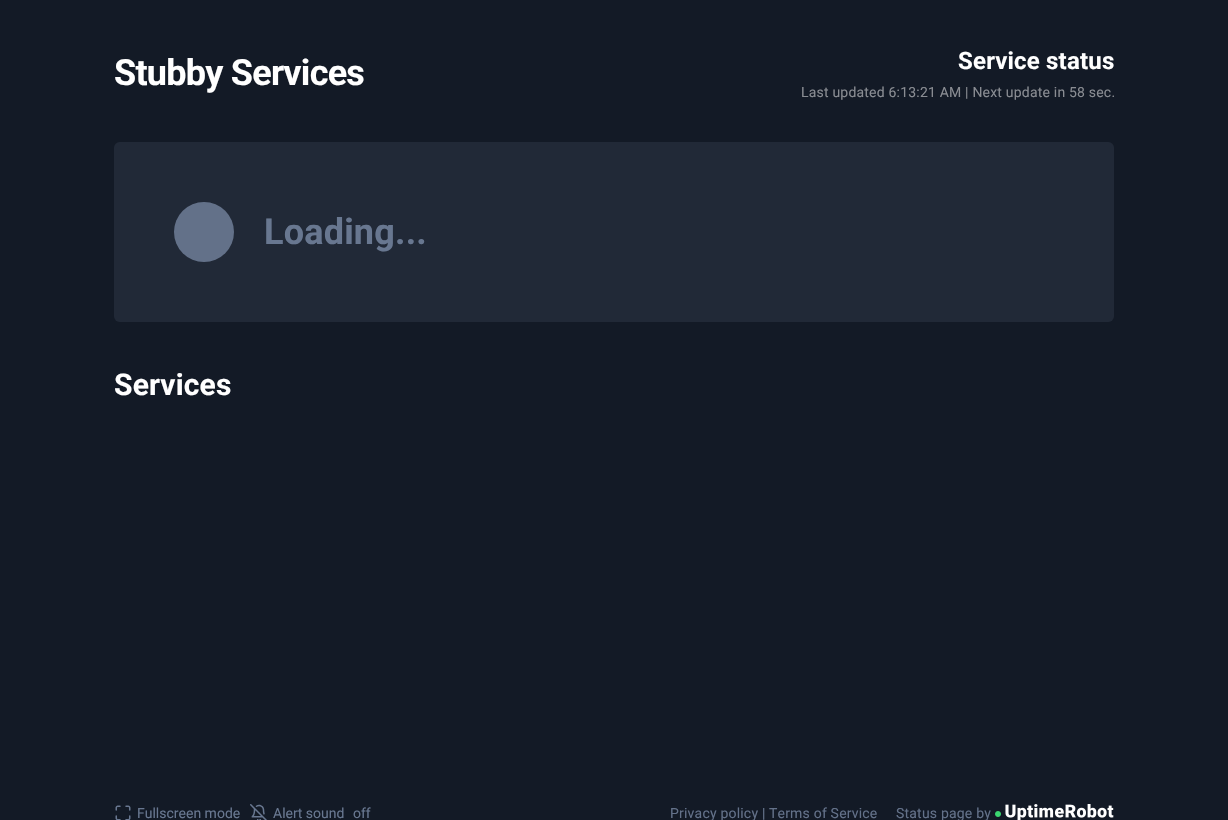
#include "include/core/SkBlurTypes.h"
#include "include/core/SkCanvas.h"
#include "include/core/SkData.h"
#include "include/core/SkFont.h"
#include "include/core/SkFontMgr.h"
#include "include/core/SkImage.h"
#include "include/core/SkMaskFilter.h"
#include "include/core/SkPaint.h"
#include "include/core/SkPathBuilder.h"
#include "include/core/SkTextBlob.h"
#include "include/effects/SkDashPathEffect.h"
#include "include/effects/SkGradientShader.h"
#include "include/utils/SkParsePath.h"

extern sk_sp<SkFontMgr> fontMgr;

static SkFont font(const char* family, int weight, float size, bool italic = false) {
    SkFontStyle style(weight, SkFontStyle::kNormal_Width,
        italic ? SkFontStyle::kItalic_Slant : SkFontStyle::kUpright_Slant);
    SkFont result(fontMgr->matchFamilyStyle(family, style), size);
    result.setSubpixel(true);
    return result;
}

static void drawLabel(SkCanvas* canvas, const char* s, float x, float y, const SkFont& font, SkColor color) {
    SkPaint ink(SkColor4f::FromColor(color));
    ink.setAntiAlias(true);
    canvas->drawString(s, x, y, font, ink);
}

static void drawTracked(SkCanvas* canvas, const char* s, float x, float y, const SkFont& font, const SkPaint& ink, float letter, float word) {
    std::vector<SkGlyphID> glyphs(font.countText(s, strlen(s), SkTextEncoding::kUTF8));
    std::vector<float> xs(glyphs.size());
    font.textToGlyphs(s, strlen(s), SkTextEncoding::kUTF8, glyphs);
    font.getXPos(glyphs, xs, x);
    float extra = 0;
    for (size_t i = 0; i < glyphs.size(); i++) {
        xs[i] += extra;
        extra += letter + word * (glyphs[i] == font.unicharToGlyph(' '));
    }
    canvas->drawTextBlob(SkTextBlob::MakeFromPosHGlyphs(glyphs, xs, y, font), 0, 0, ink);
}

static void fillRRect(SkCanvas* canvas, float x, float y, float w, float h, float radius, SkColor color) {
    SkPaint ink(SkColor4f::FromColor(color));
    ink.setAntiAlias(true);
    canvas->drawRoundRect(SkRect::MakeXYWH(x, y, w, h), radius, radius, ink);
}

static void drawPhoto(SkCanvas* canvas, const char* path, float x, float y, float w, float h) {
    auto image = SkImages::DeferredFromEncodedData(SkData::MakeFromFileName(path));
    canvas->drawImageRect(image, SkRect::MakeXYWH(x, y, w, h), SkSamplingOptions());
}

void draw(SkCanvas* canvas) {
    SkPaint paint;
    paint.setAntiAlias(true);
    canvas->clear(0xFF131A26);
    SkFont font1 = font("Roboto", 700, 36);
    paint.setColor(0xFFFFFFFF);
    drawTracked(canvas, "Stubby Services", 114, 85, font1, paint, -0.75f, 0);
    SkFont font2 = font("Roboto", 700, 24);
    drawTracked(canvas, "Service status", 958, 69, font2, paint, 0.2f, 0);
    SkFont font3 = font("Roboto", 400, 14);
    paint.setColor(0xFF898C92);
    drawTracked(canvas, "Last updated 6:13:21 AM | Next update in 58 sec.", 801, 97, font3, paint, 0.2f, 0);
    fillRRect(canvas, 114, 142, 1000, 180, 6, 0xFF212937);
    paint.setColor(0xFF637189);
    canvas->drawCircle(204, 232, 30, paint);
    paint.setColor(0xFF687790);
    drawTracked(canvas, "Loading...", 264, 244, font1, paint, 0.2f, 0);
    SkFont font4 = font("Roboto", 700, 30);
    paint.setColor(0xFFFFFFFF);
    drawTracked(canvas, "Services", 114, 395, font4, paint, 0.2f, 0);
    drawPhoto(canvas, "assets/img1.png", 115, 805, 16, 15);
    drawLabel(canvas, "Fullscreen mode", 137, 818, font3, 0xFF687790);
    drawPhoto(canvas, "assets/img2.png", 250, 804, 17, 16);
    drawLabel(canvas, "Alert sound", 273, 818, font3, 0xFF687790);
    drawLabel(canvas, "off", 353, 818, font3, 0xFF687790);
    paint.setColor(0xFF637189);
    drawTracked(canvas, "Privacy policy", 670, 818, font3, paint, 0.2f, 0);
    paint.setColor(0xFF687790);
    drawTracked(canvas, "|", 762, 818, font3, paint, 0.2f, 0);
    paint.setColor(0xFF637189);
    drawTracked(canvas, "Terms of Service", 769, 818, font3, paint, 0.2f, 0);
    drawTracked(canvas, "Status page by", 896, 818, font3, paint, 0.2f, 0);
    drawPhoto(canvas, "assets/img3.png", 995, 804, 119, 16);
}
